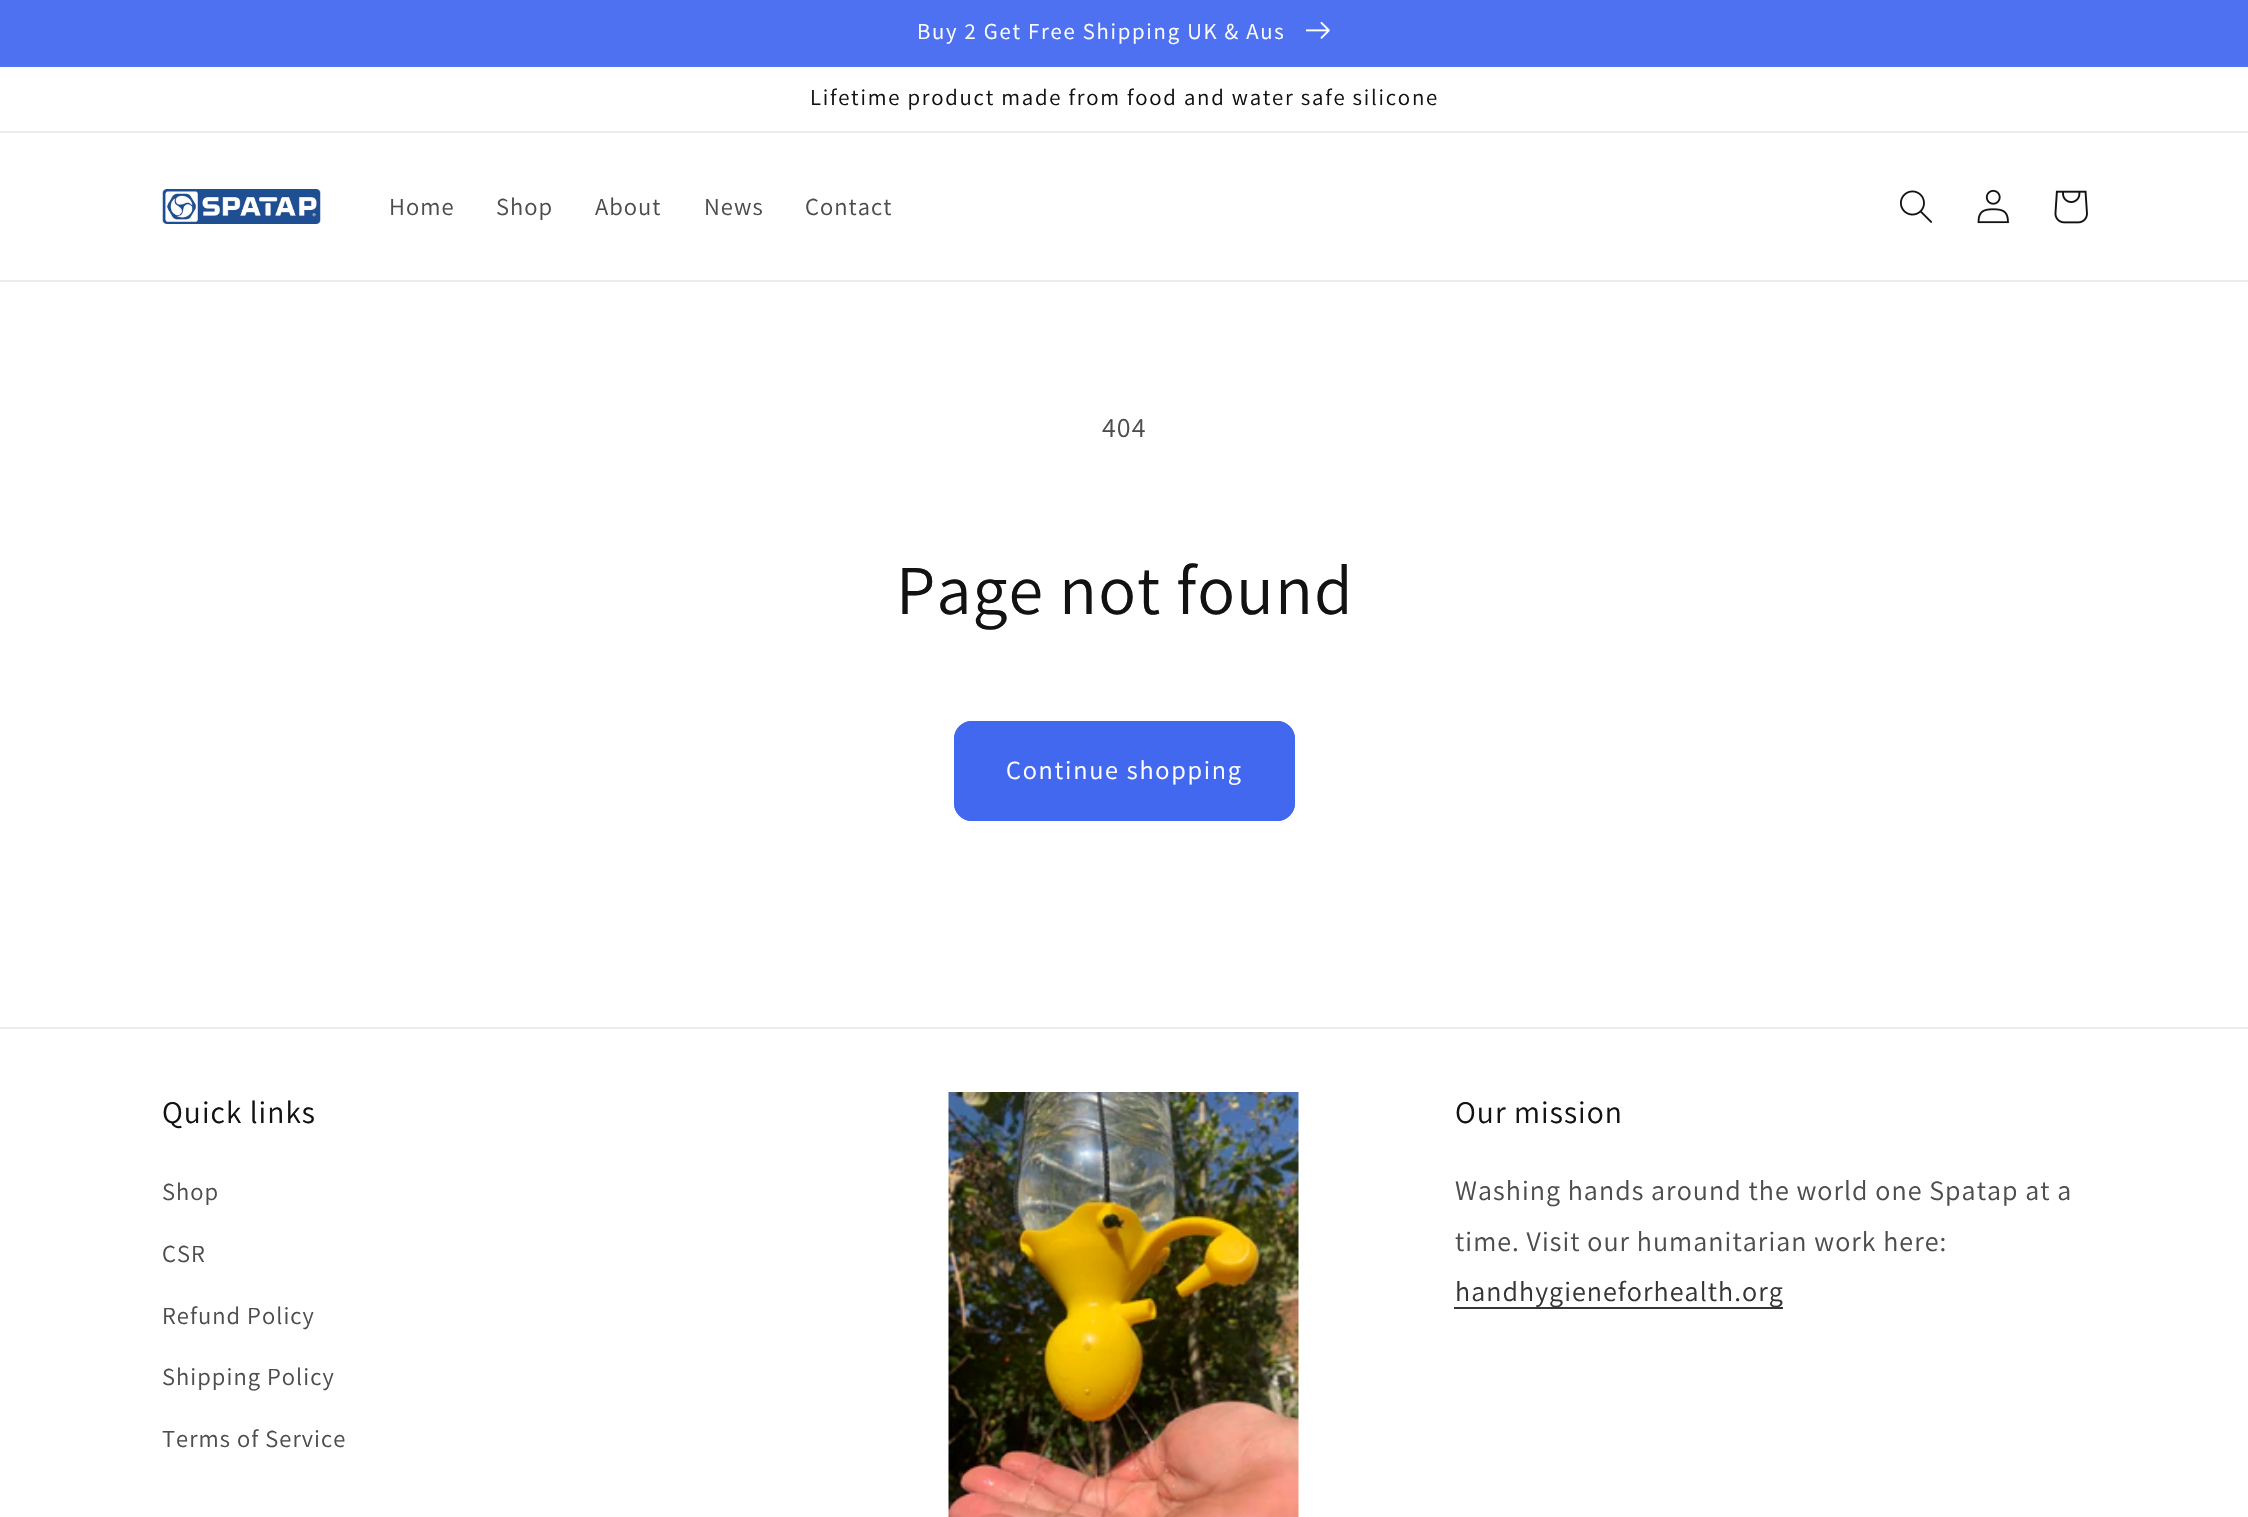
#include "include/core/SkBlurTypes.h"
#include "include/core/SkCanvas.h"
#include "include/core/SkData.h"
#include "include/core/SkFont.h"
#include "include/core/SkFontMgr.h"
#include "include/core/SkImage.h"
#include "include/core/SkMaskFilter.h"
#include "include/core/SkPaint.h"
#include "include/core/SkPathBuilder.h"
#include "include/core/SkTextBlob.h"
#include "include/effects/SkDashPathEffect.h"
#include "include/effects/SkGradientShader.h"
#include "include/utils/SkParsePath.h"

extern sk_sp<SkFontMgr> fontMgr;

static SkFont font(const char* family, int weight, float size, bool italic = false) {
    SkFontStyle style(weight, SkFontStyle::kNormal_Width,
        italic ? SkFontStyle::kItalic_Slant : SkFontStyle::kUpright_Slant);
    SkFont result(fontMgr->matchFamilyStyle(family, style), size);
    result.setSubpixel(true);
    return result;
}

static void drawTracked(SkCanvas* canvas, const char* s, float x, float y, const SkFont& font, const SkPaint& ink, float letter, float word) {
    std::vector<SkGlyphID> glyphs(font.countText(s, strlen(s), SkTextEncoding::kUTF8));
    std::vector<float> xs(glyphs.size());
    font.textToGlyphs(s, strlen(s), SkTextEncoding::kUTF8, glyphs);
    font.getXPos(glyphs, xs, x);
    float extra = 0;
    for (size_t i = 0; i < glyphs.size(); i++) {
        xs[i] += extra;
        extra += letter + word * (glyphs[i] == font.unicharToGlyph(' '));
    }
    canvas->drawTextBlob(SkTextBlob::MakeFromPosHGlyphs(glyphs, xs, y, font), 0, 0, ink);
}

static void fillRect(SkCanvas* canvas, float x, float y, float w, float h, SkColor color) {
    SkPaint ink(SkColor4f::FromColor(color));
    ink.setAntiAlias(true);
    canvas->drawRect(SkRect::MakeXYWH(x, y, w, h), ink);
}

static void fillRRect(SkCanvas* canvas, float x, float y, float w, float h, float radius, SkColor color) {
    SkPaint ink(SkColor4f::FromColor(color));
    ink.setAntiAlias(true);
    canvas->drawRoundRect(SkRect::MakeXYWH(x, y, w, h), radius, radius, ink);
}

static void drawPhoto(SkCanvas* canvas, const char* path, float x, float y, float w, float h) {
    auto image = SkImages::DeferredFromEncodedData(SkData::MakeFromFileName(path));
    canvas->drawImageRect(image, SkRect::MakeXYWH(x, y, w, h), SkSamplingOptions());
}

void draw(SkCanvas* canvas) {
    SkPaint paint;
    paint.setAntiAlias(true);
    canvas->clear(0xFFFFFFFF);
    fillRect(canvas, 0, 65, 2248, 2, 0xFF5174F1);
    fillRect(canvas, 0, 0, 2248, 65, 0xFF4D71F1);
    SkFont font1 = font("Assistant", 400, 22.75f);
    paint.setColor(0xFFFFFFFF);
    drawTracked(canvas, "Buy 2 Get Free Shipping UK & Aus", 917, 39, font1, paint, 1.75f, 0);
    drawPhoto(canvas, "assets/img1.png", 1306, 21, 24, 18);
    fillRect(canvas, 0, 131, 2248, 2, 0xFFECECEC);
    paint.setColor(0xFF121212);
    drawTracked(canvas, "Lifetime product made from food and water safe silicone", 810, 105, font1, paint, 1.75f, 0);
    fillRect(canvas, 0, 280, 2248, 2, 0xFFECECEC);
    drawPhoto(canvas, "assets/img2.png", 162, 189, 159, 35);
    SkFont font2 = font("Assistant", 400, 24.5f);
    paint.setColor(0xFF4D4D4D);
    drawTracked(canvas, "Home", 389, 215, font2, paint, 1.05f, 0);
    drawTracked(canvas, "Shop", 496, 215, font2, paint, 1.05f, 0);
    drawTracked(canvas, "About", 595, 215, font2, paint, 1.05f, 0);
    drawTracked(canvas, "News", 704, 215, font2, paint, 1.05f, 0);
    drawTracked(canvas, "Contact", 805, 215, font2, paint, 1.05f, 0);
    drawPhoto(canvas, "assets/img3.png", 1900, 190, 32, 33);
    drawPhoto(canvas, "assets/img4.png", 1977, 189, 32, 35);
    drawPhoto(canvas, "assets/img5.png", 2054, 190, 34, 34);
    SkFont font3 = font("Assistant", 400, 28);
    drawTracked(canvas, "404", 1102, 437, font3, paint, 1.05f, 0);
    SkFont font4 = font("Assistant", 400, 70);
    paint.setColor(0xFF121212);
    drawTracked(canvas, "Page not found", 896, 614, font4, paint, 1.05f, 0);
    fillRRect(canvas, 954, 721, 341, 100, 18, 0xFF4268F0);
    paint.setStroke(true);
    paint.setStrokeWidth(11);
    paint.setColor(0xFF4268F0);
    canvas->drawRoundRect(SkRect::MakeXYWH(959.5f, 726.5f, 330, 89), 12.5f, 12.5f, paint);
    SkFont font5 = font("Assistant", 400, 26.25f);
    paint.setStroke(false);
    paint.setColor(0xFFFFFFFF);
    drawTracked(canvas, "Continue shopping", 1006, 779, font5, paint, 1.75f, 0);
    fillRect(canvas, 0, 1027, 2248, 2, 0xFFECECEC);
    SkFont font6 = font("Assistant", 400, 31.5f);
    paint.setColor(0xFF121212);
    drawTracked(canvas, "Quick links", 162, 1123, font6, paint, 1.05f, 0);
    paint.setColor(0xFF4D4D4D);
    drawTracked(canvas, "Shop", 162, 1200, font2, paint, 1.05f, 0);
    drawTracked(canvas, "CSR", 162, 1262, font2, paint, 1.05f, 0);
    drawTracked(canvas, "Refund Policy", 162, 1324, font2, paint, 1.05f, 0);
    drawTracked(canvas, "Shipping Policy", 162, 1385, font2, paint, 1.05f, 0);
    drawTracked(canvas, "Terms of Service", 162, 1447, font2, paint, 1.05f, 0);
    drawPhoto(canvas, "assets/img6.png", 948, 1092, 351, 425);
    paint.setColor(0xFF121212);
    drawTracked(canvas, "Our mission", 1455, 1123, font6, paint, 1.05f, 0);
    paint.setColor(0xFF4D4D4D);
    drawTracked(canvas, "Washing hands around the world one Spatap at a", 1455, 1200, font3, paint, 1.05f, 0);
    drawTracked(canvas, "time. Visit our humanitarian work here:", 1455, 1251, font3, paint, 1.05f, 0);
    fillRect(canvas, 1454, 1307, 329, 2, 0xFF363636);
    paint.setColor(0xFF353535);
    drawTracked(canvas, "handhygieneforhealth.org", 1455, 1301, font3, paint, 1.05f, 0);
}
